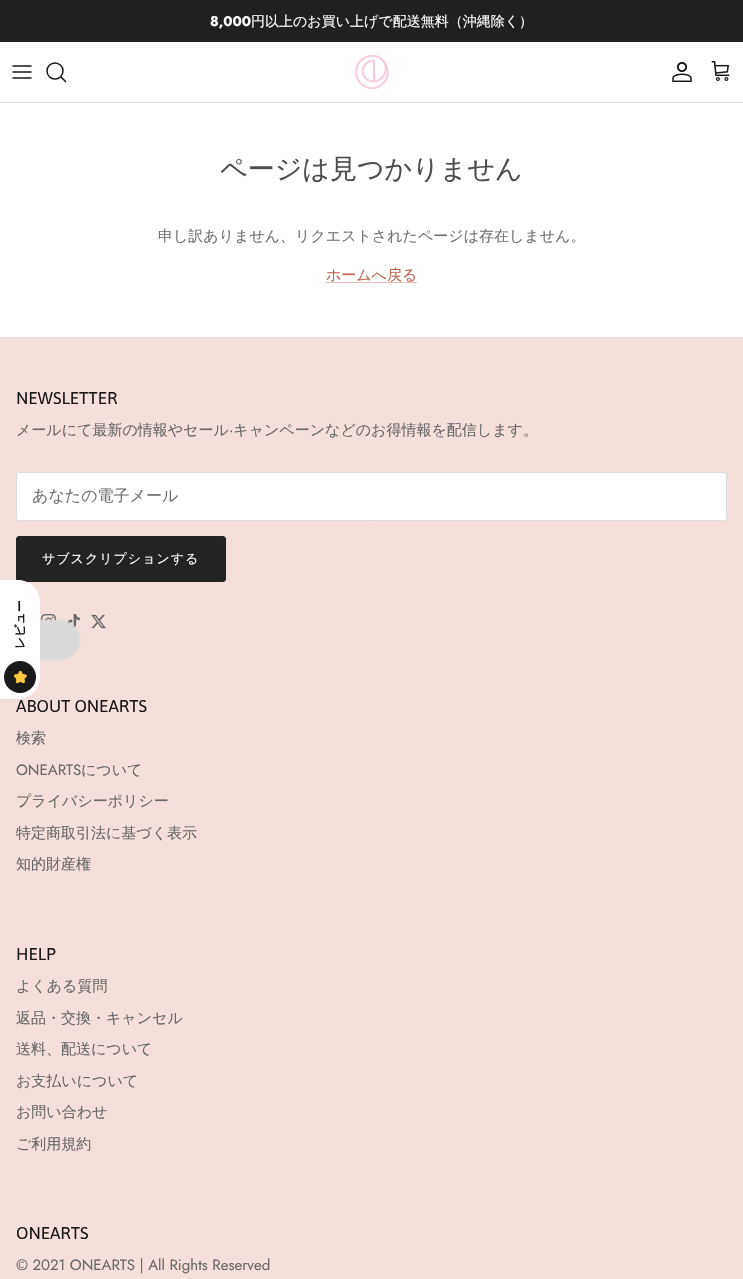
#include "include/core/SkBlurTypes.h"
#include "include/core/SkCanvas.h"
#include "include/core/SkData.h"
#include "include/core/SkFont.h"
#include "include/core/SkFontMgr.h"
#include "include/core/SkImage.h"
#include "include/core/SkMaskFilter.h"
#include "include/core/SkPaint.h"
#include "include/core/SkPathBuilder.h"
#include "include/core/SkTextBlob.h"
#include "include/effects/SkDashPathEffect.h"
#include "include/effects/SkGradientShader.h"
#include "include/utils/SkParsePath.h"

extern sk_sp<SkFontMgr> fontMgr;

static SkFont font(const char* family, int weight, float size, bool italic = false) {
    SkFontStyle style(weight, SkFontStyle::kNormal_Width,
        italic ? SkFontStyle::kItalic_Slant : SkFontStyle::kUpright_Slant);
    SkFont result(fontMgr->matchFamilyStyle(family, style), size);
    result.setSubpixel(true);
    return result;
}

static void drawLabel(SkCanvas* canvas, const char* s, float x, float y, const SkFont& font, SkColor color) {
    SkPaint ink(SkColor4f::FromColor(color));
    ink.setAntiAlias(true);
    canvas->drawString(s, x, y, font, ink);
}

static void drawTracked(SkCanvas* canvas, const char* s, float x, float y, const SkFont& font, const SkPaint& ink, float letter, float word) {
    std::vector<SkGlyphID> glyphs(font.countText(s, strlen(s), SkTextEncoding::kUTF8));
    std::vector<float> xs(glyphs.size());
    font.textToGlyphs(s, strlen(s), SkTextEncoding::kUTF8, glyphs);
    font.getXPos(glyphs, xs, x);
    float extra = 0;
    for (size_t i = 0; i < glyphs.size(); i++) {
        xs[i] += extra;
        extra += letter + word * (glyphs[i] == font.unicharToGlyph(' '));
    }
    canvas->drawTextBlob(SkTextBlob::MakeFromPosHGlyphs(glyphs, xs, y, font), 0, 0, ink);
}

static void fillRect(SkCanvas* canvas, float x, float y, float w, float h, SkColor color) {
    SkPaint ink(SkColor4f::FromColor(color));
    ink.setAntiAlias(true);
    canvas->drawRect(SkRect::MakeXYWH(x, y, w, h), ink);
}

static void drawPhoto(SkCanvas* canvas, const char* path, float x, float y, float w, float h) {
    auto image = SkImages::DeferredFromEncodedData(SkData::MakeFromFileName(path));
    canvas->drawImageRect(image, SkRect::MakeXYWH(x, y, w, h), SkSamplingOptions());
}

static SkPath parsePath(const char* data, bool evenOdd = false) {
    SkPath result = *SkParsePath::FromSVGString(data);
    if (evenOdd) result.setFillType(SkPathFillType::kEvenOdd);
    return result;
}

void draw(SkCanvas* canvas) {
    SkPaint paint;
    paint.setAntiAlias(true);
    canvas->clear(0xFFFFFFFF);
    fillRect(canvas, 0, 0, 743, 42, 0xFF202020);
    SkFont font1 = font("Jost", 700, 14);
    drawLabel(canvas, "8,000", 210, 26, font1, 0xFFFFFFFF);
    SkFont font2 = font("WenQuanYi Zen Hei", 500, 14);
    drawLabel(canvas, "円以上のお買い上げで配送無料（沖縄除く）", 251, 26, font2, 0xFFFFFFFF);
    fillRect(canvas, 0, 102, 743, 1, 0xFFDFE3E8);
    paint.setStroke(true);
    paint.setStrokeWidth(1.5f);
    paint.setStrokeCap(SkPaint::kRound_Cap);
    paint.setStrokeJoin(SkPaint::kRound_Join);
    paint.setColor(0xFF171717);
    canvas->drawPath(parsePath("M13 72H31M13 66H31M13 78H31"), paint);
    paint.setStrokeCap(SkPaint::kButt_Cap);
    paint.setStrokeJoin(SkPaint::kMiter_Join);
    canvas->drawCircle(55, 71, 8, paint);
    paint.setStrokeCap(SkPaint::kSquare_Cap);
    canvas->drawPath(parsePath("M61 77L65.5 81.5"), paint);
    drawPhoto(canvas, "assets/img1.png", 355, 54, 34, 35);
    drawPhoto(canvas, "assets/img2.png", 672, 62, 20, 20);
    drawPhoto(canvas, "assets/img3.png", 711, 61, 19, 20);
    SkFont font3 = font("WenQuanYi Zen Hei", 500, 27);
    drawLabel(canvas, "ページは見つかりません", 220, 178, font3, 0xFF4D4D4D);
    SkFont font4 = font("WenQuanYi Zen Hei", 500, 15);
    drawLabel(canvas, "申し訳ありません、リクエストされたページは存在しません。", 158, 241, font4, 0xFF707173);
    drawLabel(canvas, "ホームへ戻る", 326, 280, font4, 0xFFC16452);
    fillRect(canvas, 326, 282, 91, 1, 0xFFE6C1BA);
    fillRect(canvas, 0, 338, 743, 941, 0xFFF4DFDB);
    fillRect(canvas, 0, 337, 743, 1, 0xFFECD6D1);
    SkFont font5 = font("Asap", 400, 17);
    drawLabel(canvas, "NEWSLETTER", 16, 404, font5, 0xFF171717);
    drawLabel(canvas, "メールにて最新の情報やセール キャンペーンなどのお得情報を配信します。", 16, 435, font4, 0xFF676869);
    SkFont font6 = font("Jost", 400, 15);
    drawLabel(canvas, "·", 229, 435, font6, 0xFF676869);
    paint.setStroke(false);
    paint.setColor(0xFFFFFFFF);
    canvas->drawRoundRect(SkRect::MakeXYWH(16.5f, 472.5f, 710, 48), 2.5f, 2.5f, paint);
    paint.setStroke(true);
    paint.setStrokeWidth(1);
    paint.setStrokeCap(SkPaint::kButt_Cap);
    paint.setColor(0xFFDBDCDC);
    canvas->drawRoundRect(SkRect::MakeXYWH(16.5f, 472.5f, 710, 48), 2.5f, 2.5f, paint);
    SkFont font7 = font("WenQuanYi Zen Hei", 500, 16);
    drawLabel(canvas, "あなたの電子メール", 32, 501, font7, 0xFF707173);
    paint.setStroke(false);
    paint.setColor(0xFF232323);
    canvas->drawRoundRect(SkRect::MakeXYWH(16.5f, 536.5f, 209, 45), 2.5f, 2.5f, paint);
    paint.setStroke(true);
    canvas->drawRoundRect(SkRect::MakeXYWH(16.5f, 536.5f, 209, 45), 2.5f, 2.5f, paint);
    SkFont font8 = font("WenQuanYi Zen Hei", 500, 13);
    paint.setStroke(false);
    paint.setColor(0xFFFFFFFF);
    drawTracked(canvas, "サブスクリプションする", 42, 563, font8, paint, 1, 0);
    drawPhoto(canvas, "assets/img4.png", 41, 614, 15, 8);
    drawPhoto(canvas, "assets/img5.png", 66, 614, 14, 15);
    drawPhoto(canvas, "assets/img6.png", 91, 614, 15, 15);
    drawLabel(canvas, "ABOUT ONEARTS", 16, 712, font5, 0xFF171717);
    drawLabel(canvas, "検索", 16, 743, font4, 0xFF676869);
    drawLabel(canvas, "ONEARTS", 16, 775, font6, 0xFF676869);
    drawLabel(canvas, "について", 81, 775, font4, 0xFF676869);
    drawLabel(canvas, "プライバシーポリシー", 16, 806, font4, 0xFF676869);
    drawLabel(canvas, "特定商取引法に基づく表示", 16, 838, font4, 0xFF676869);
    drawLabel(canvas, "知的財産権", 16, 869, font4, 0xFF676869);
    drawLabel(canvas, "HELP", 16, 960, font5, 0xFF171717);
    drawLabel(canvas, "よくある質問", 16, 991, font4, 0xFF676869);
    drawLabel(canvas, "返品・交換・キャンセル", 16, 1023, font4, 0xFF676869);
    drawLabel(canvas, "送料、配送について", 16, 1054, font4, 0xFF676869);
    drawLabel(canvas, "お支払いについて", 16, 1086, font4, 0xFF676869);
    drawLabel(canvas, "お問い合わせ", 16, 1117, font4, 0xFF676869);
    drawLabel(canvas, "ご利用規約", 16, 1149, font4, 0xFF676869);
    drawLabel(canvas, "ONEARTS", 16, 1239, font5, 0xFF171717);
    drawLabel(canvas, "© 2021 ONEARTS | All Rights Reserved", 16, 1270, font6, 0xFF676869);
    paint.setColor(0xFFDADADA);
    paint.setMaskFilter(SkMaskFilter::MakeBlur(kNormal_SkBlurStyle, 1));
    canvas->drawRoundRect(SkRect::MakeXYWH(-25, 620, 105, 40), 22, 22, paint);
    paint.setMaskFilter(nullptr);
    paint.setColor(0xFFFFFFFF);
    canvas->drawPath(parsePath("M0 699V580H18C30 580 40 590 40 602V677C40 689 30 699 18 699Z"), paint);
    SkFont font9 = font("WenQuanYi Zen Hei", 700, 12);
    canvas->save();
    canvas->rotate(-90, 24, 649);
    drawLabel(canvas, "レビュー", 24, 649, font9, 0xFF171717);
    canvas->restore();
    paint.setColor(0xFF1A1A1A);
    canvas->drawCircle(20, 677, 16, paint);
    drawPhoto(canvas, "assets/img7.png", 13, 670, 14, 14);
}
